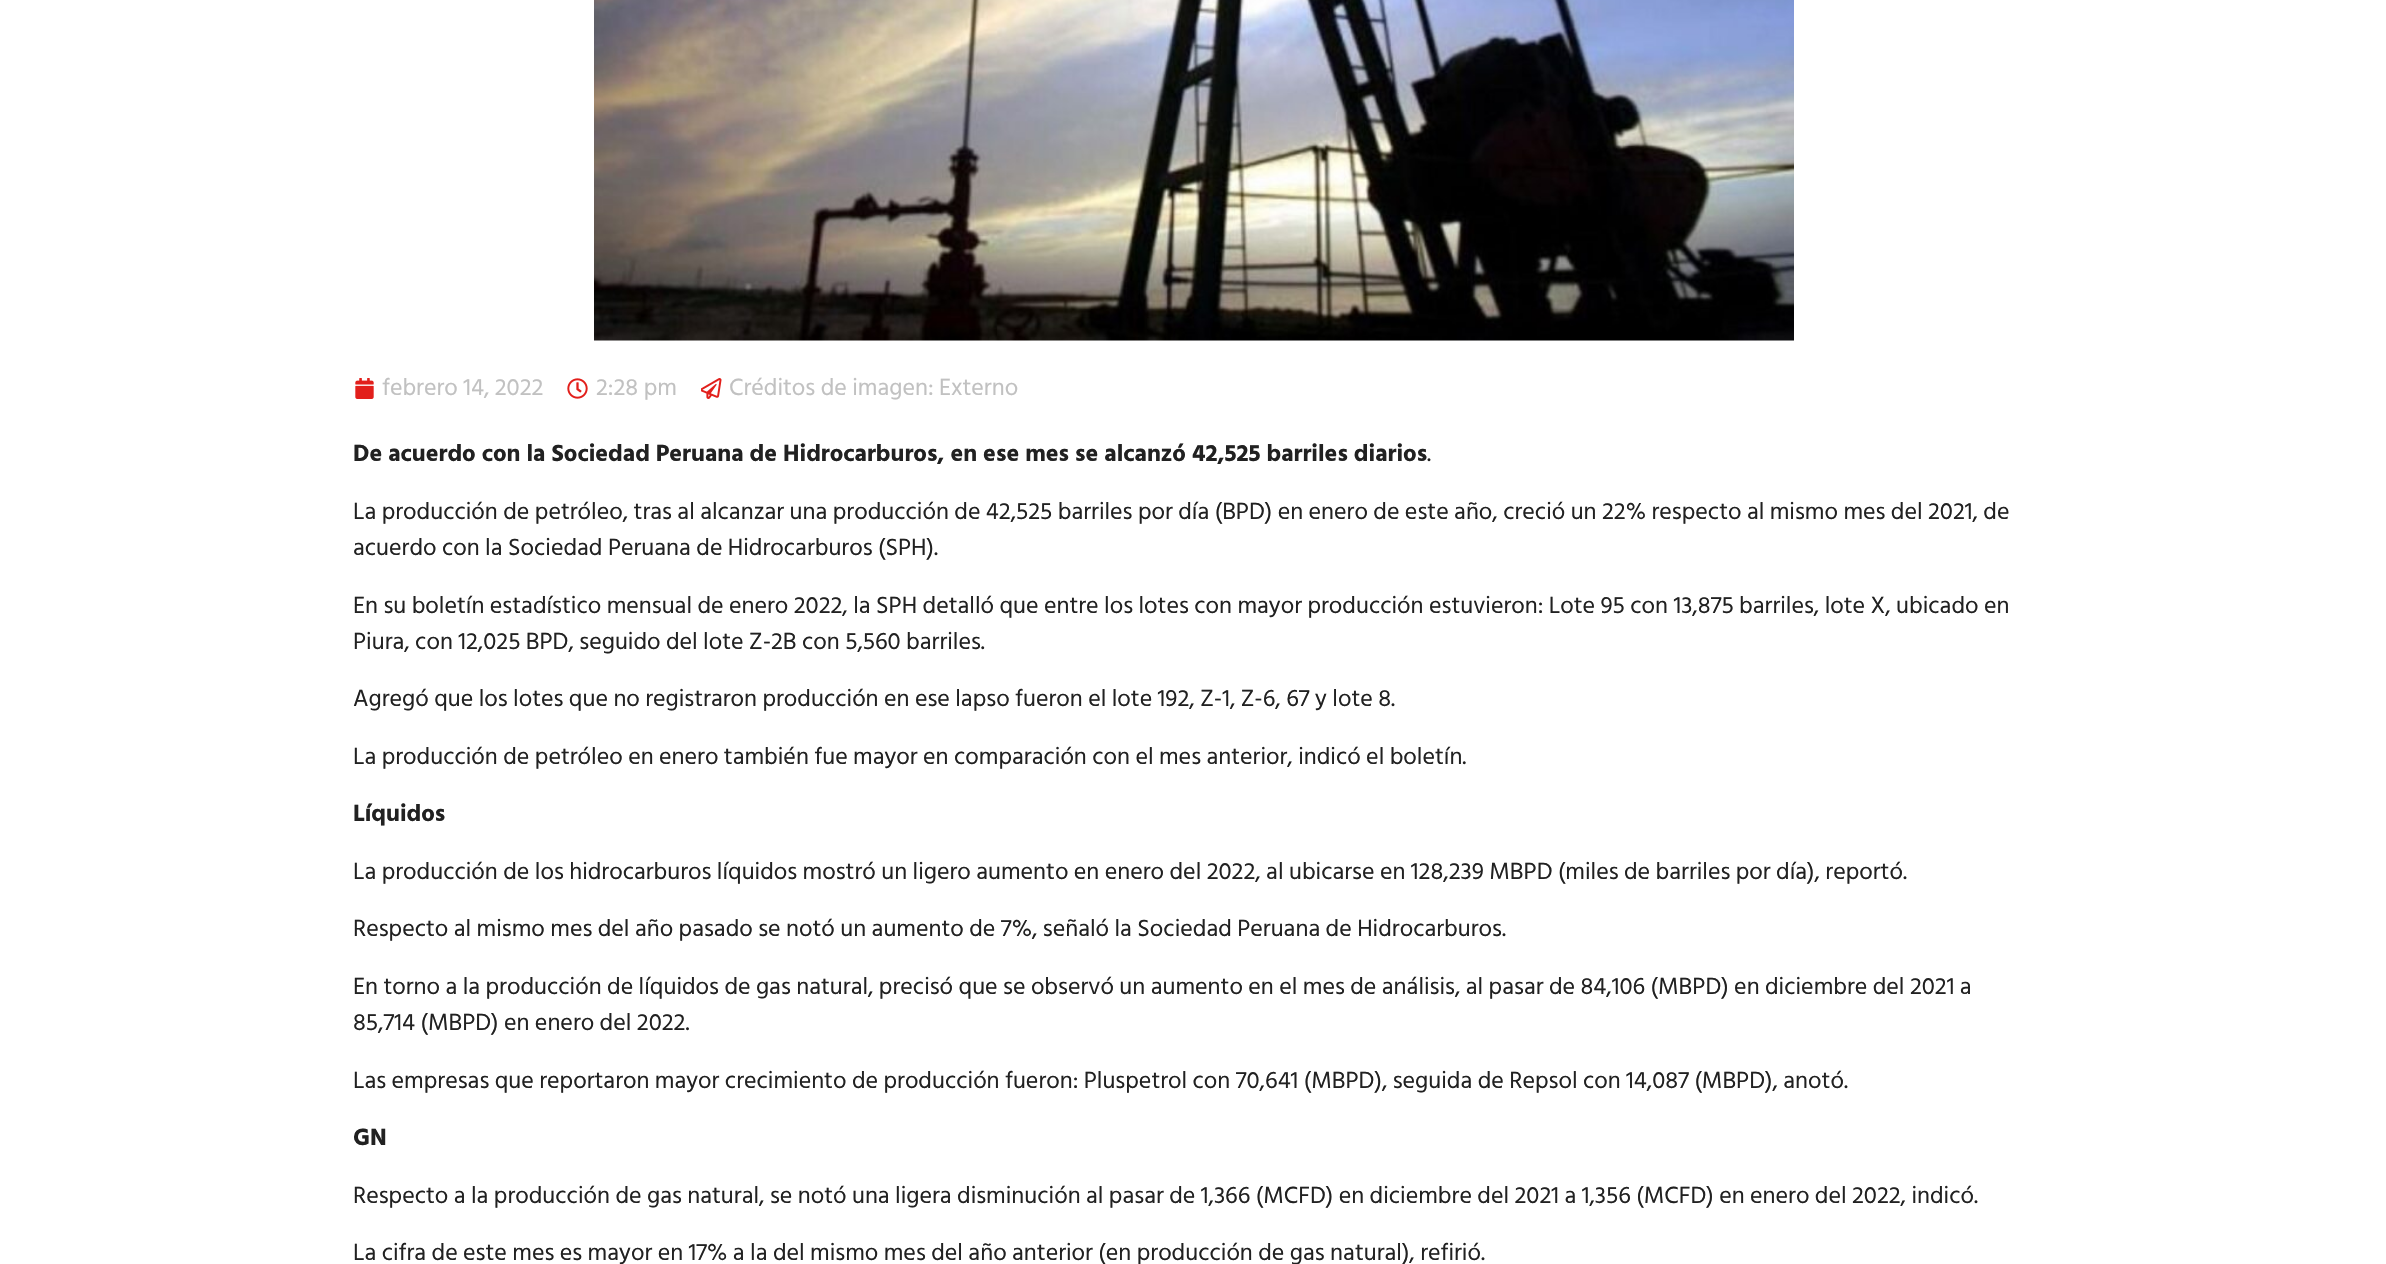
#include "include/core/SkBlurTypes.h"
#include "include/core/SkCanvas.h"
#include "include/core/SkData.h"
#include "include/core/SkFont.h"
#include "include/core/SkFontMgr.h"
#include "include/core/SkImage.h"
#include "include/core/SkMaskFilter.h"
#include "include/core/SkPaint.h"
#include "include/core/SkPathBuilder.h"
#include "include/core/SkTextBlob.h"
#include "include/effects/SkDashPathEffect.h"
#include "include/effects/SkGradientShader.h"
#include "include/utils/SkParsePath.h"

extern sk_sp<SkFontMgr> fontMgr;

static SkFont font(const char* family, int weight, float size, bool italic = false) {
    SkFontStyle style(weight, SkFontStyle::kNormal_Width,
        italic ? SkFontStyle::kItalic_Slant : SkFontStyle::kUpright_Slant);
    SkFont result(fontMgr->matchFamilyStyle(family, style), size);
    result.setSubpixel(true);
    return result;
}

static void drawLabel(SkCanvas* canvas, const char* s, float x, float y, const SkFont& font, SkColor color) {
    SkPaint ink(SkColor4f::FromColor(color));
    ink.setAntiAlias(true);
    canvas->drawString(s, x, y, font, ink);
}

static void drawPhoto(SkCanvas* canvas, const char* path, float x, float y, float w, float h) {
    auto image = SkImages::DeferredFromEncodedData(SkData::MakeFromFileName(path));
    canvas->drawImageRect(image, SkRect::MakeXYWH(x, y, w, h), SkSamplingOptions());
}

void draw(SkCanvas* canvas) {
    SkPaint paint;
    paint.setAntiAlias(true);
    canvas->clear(0xFFFFFFFF);
    drawPhoto(canvas, "assets/img1.png", 594, 0, 1200, 341);
    drawPhoto(canvas, "assets/img2.png", 355, 378, 19, 21);
    SkFont font1 = font("Hind Siliguri", 400, 24);
    drawLabel(canvas, "febrero 14, 2022", 382, 395, font1, 0xFFC1C1C1);
    drawPhoto(canvas, "assets/img3.png", 567, 378, 21, 21);
    drawLabel(canvas, "2:28 pm", 596, 395, font1, 0xFFC1C1C1);
    drawPhoto(canvas, "assets/img4.png", 701, 378, 21, 21);
    drawLabel(canvas, "Créditos de imagen: Externo", 729, 395, font1, 0xFFC1C1C1);
    SkFont font2 = font("Hind Siliguri", 700, 24);
    drawLabel(canvas, "De acuerdo con la Sociedad Peruana de Hidrocarburos, en ese mes se alcanzó 42,525 barriles diarios", 353, 461, font2, 0xFF212121);
    drawLabel(canvas, ".", 1427, 461, font1, 0xFF212121);
    drawLabel(canvas, "La producción de petróleo, tras al alcanzar una producción de 42,525 barriles por día (BPD) en enero de este año, creció un 22% respecto al mismo mes del 2021, de", 353, 519, font1, 0xFF212121);
    drawLabel(canvas, "acuerdo con la Sociedad Peruana de Hidrocarburos (SPH).", 353, 555, font1, 0xFF212121);
    drawLabel(canvas, "En su boletín estadístico mensual de enero 2022, la SPH detalló que entre los lotes con mayor producción estuvieron: Lote 95 con 13,875 barriles, lote X, ubicado en", 353, 613, font1, 0xFF212121);
    drawLabel(canvas, "Piura, con 12,025 BPD, seguido del lote Z-2B con 5,560 barriles.", 353, 649, font1, 0xFF212121);
    drawLabel(canvas, "Agregó que los lotes que no registraron producción en ese lapso fueron el lote 192, Z-1, Z-6, 67 y lote 8.", 353, 706, font1, 0xFF212121);
    drawLabel(canvas, "La producción de petróleo en enero también fue mayor en comparación con el mes anterior, indicó el boletín.", 353, 764, font1, 0xFF212121);
    drawLabel(canvas, "Líquidos", 353, 821, font2, 0xFF212121);
    drawLabel(canvas, "La producción de los hidrocarburos líquidos mostró un ligero aumento en enero del 2022, al ubicarse en 128,239 MBPD (miles de barriles por día), reportó.", 353, 879, font1, 0xFF212121);
    drawLabel(canvas, "Respecto al mismo mes del año pasado se notó un aumento de 7%, señaló la Sociedad Peruana de Hidrocarburos.", 353, 936, font1, 0xFF212121);
    drawLabel(canvas, "En torno a la producción de líquidos de gas natural, precisó que se observó un aumento en el mes de análisis, al pasar de 84,106 (MBPD) en diciembre del 2021 a", 353, 994, font1, 0xFF212121);
    drawLabel(canvas, "85,714 (MBPD) en enero del 2022.", 353, 1030, font1, 0xFF212121);
    drawLabel(canvas, "Las empresas que reportaron mayor crecimiento de producción fueron: Pluspetrol con 70,641 (MBPD), seguida de Repsol con 14,087 (MBPD), anotó.", 353, 1088, font1, 0xFF212121);
    drawLabel(canvas, "GN", 353, 1145, font2, 0xFF212121);
    drawLabel(canvas, "Respecto a la producción de gas natural, se notó una ligera disminución al pasar de 1,366 (MCFD) en diciembre del 2021 a 1,356 (MCFD) en enero del 2022, indicó.", 353, 1203, font1, 0xFF212121);
    drawLabel(canvas, "La cifra de este mes es mayor en 17% a la del mismo mes del año anterior (en producción de gas natural), refirió.", 353, 1260, font1, 0xFF212121);
}
